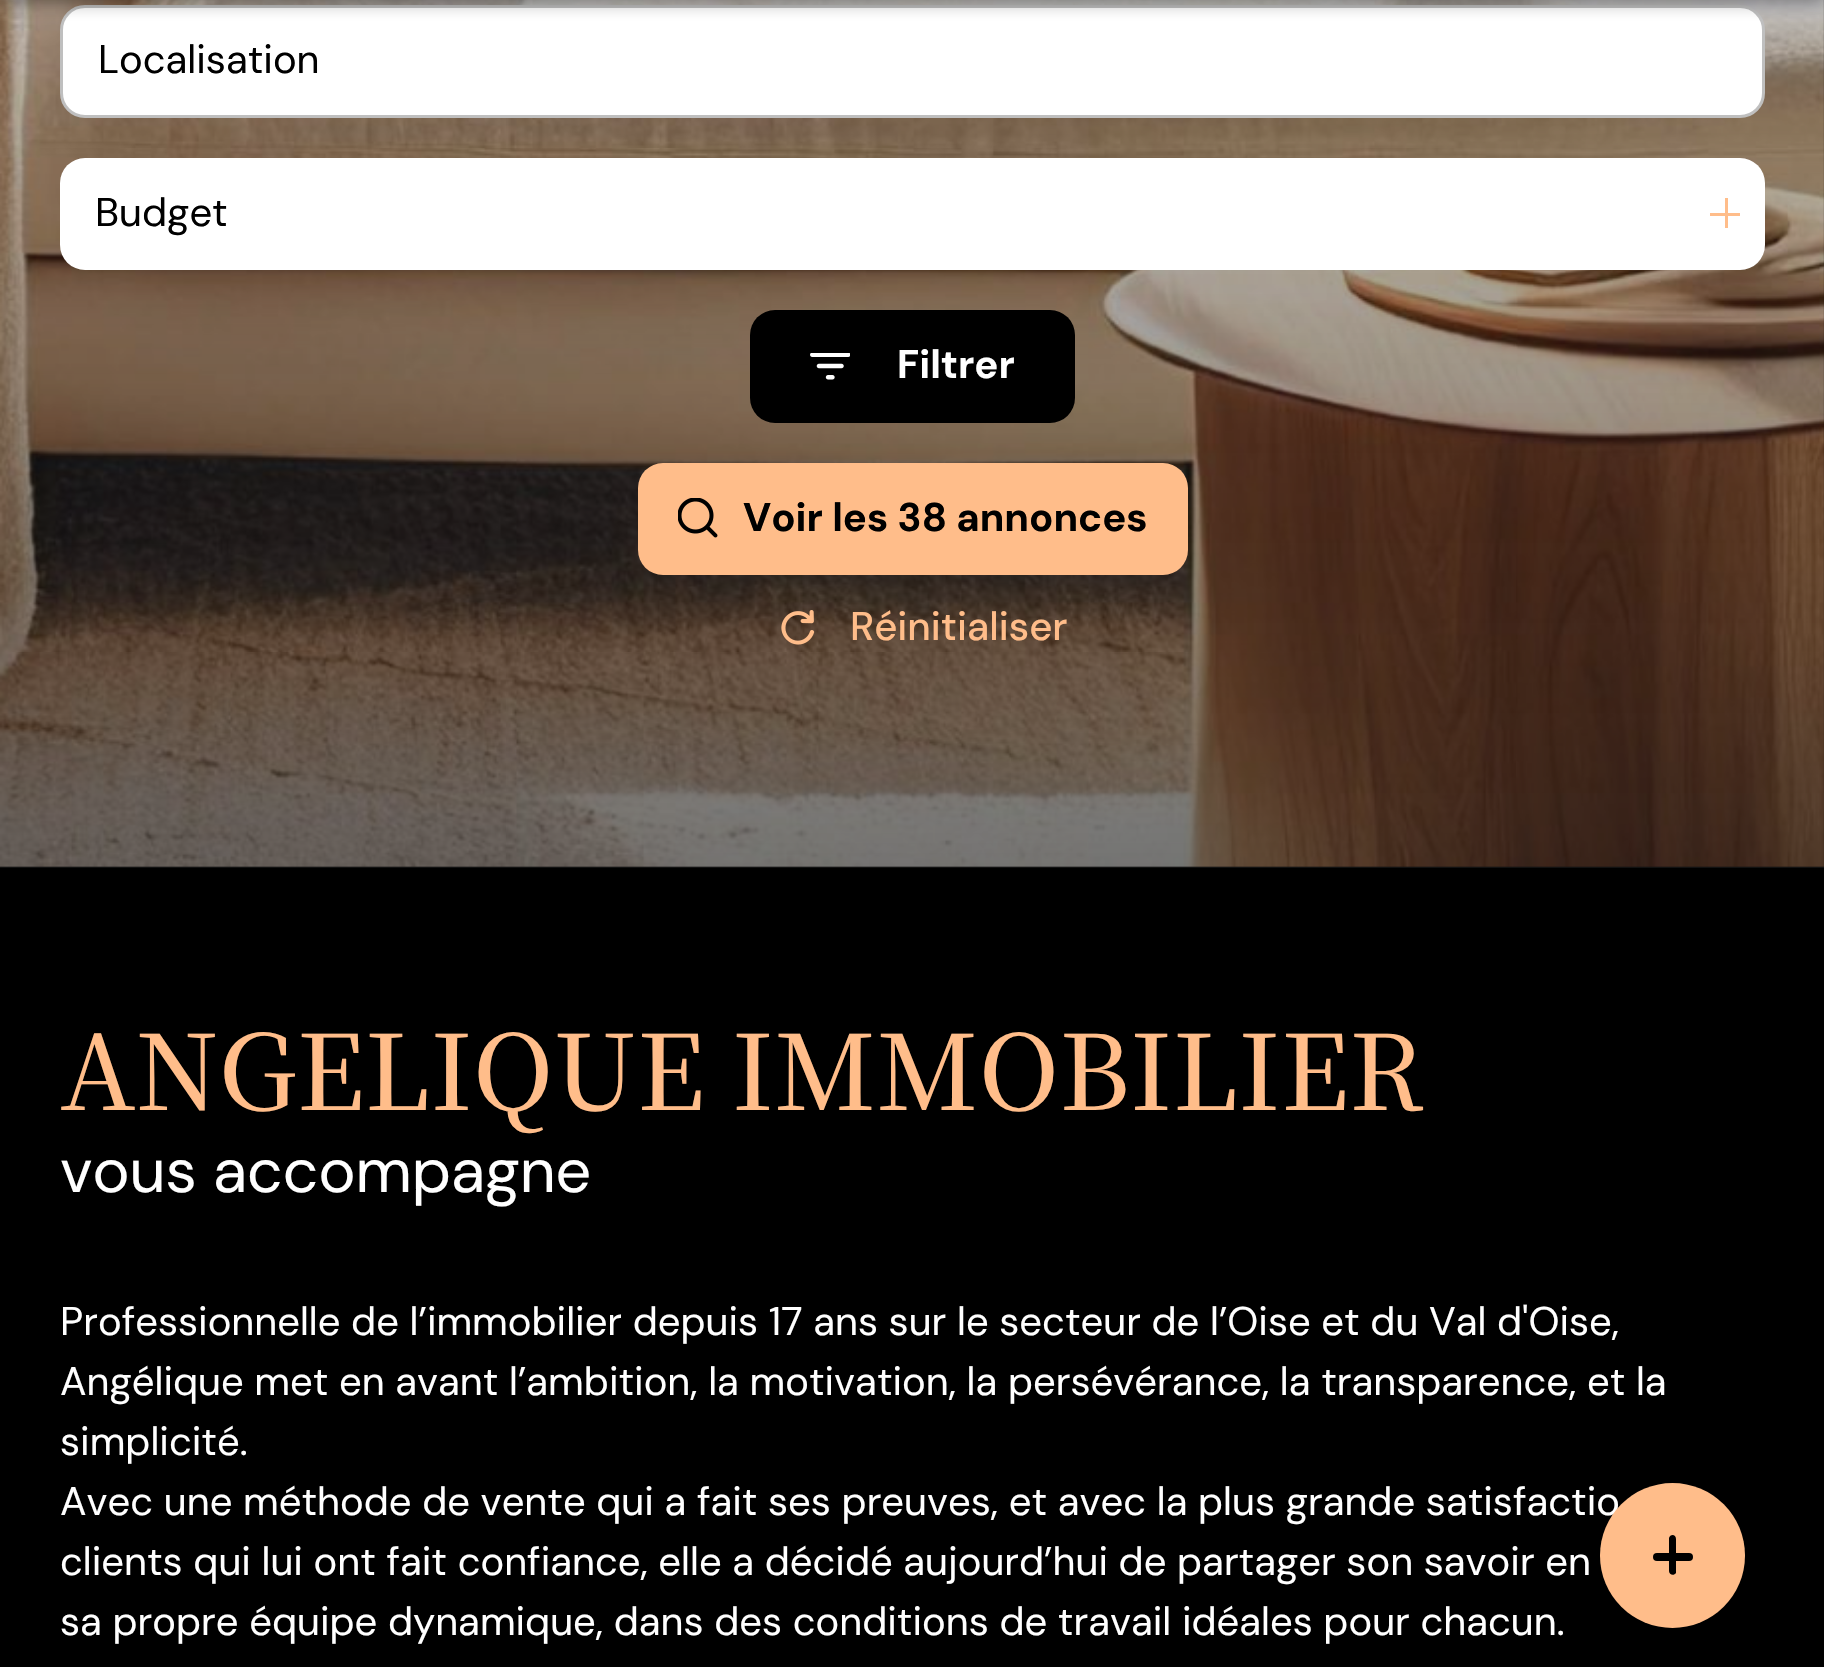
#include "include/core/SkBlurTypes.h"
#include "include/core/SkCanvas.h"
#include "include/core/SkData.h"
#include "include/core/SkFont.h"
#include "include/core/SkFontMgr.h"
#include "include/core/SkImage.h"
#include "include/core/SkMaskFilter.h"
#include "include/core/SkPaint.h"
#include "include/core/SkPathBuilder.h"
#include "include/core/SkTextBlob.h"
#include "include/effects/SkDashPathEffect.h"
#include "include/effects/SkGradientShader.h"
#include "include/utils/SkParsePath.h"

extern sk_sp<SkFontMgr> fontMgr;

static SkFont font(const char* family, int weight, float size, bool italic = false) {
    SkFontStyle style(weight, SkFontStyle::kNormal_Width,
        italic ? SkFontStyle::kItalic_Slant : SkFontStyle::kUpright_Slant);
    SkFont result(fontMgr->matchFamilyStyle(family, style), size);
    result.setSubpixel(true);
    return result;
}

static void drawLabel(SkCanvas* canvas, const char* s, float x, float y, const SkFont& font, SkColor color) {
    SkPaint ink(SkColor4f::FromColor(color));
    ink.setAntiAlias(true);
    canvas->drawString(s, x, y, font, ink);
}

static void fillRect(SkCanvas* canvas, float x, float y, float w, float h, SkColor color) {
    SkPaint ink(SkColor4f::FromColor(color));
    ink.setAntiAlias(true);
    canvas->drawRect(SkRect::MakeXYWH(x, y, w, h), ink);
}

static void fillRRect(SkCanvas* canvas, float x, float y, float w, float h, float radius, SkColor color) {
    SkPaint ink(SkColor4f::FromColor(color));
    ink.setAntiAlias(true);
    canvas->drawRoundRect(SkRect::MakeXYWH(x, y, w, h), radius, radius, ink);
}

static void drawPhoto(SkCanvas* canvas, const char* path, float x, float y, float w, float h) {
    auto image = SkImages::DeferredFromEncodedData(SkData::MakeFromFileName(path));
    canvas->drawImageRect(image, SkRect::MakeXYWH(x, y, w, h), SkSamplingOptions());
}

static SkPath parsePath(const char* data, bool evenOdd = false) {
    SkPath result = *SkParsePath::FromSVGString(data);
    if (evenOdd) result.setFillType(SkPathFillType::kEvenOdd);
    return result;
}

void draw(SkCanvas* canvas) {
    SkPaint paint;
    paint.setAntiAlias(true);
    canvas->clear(0xFF000000);
    drawPhoto(canvas, "assets/img1.png", 0, 0, 1824, 867);
    {
        const SkColor colors[] = {0x001E1E1E, 0x9C1E1E1E};
        const float stops[] = {0, 1};
        const SkPoint ends[] = {{912, -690}, {913, 868}};
        paint.setShader(SkGradientShader::MakeLinear(ends, colors, stops, 2, SkTileMode::kClamp));
        paint.setAlpha(255);
    }
    canvas->drawRect(SkRect::MakeXYWH(0, 0, 1824, 868), paint);
    paint.setShader(nullptr);
    paint.setColor(0xFFFFFFFF);
    canvas->drawRoundRect(SkRect::MakeXYWH(61.5f, 6.5f, 1702, 110), 23.5f, 23.5f, paint);
    paint.setStroke(true);
    paint.setStrokeWidth(3);
    paint.setColor(0xFFBFBFBF);
    canvas->drawRoundRect(SkRect::MakeXYWH(61.5f, 6.5f, 1702, 110), 23.5f, 23.5f, paint);
    paint.setStroke(false);
    paint.setColor(0x800A0A0A);
    paint.setMaskFilter(SkMaskFilter::MakeBlur(kNormal_SkBlurStyle, 10));
    canvas->drawRect(SkRect::MakeXYWH(0, -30, 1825, 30), paint);
    paint.setMaskFilter(nullptr);
    SkFont font1 = font("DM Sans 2", 400, 40);
    drawLabel(canvas, "Localisation", 98, 73, font1, 0xFF000000);
    fillRRect(canvas, 60, 158, 1705, 112, 25, 0xFFFFFFFF);
    drawLabel(canvas, "Budget", 95, 226, font1, 0xFF000000);
    fillRect(canvas, 1725, 198, 3, 30, 0xFFFFBD8A);
    fillRect(canvas, 1710, 213, 30, 3, 0xFFFFBD8A);
    fillRRect(canvas, 750, 310, 325, 113, 25, 0xFF000000);
    drawPhoto(canvas, "assets/img2.png", 810, 353, 40, 27);
    SkFont font2 = font("DM Sans", 700, 40);
    drawLabel(canvas, "Filtrer", 897, 378, font2, 0xFFFFFFFF);
    fillRRect(canvas, 638, 463, 550, 112, 25, 0xFFFFBD8A);
    drawPhoto(canvas, "assets/img3.png", 678, 498, 40, 40);
    drawLabel(canvas, "Voir les 38 annonces", 743, 531, font2, 0xFF000000);
    drawPhoto(canvas, "assets/img4.png", 781, 610, 34, 35);
    SkFont font3 = font("DM Sans", 500, 40);
    drawLabel(canvas, "Réinitialiser", 850, 640, font3, 0xFFFFBD8A);
    SkFont font4 = font("Noto Serif JP", 500, 104);
    drawLabel(canvas, "ANGELIQUE IMMOBILIER", 60, 1110, font4, 0xFFFFBD8A);
    SkFont font5 = font("DM Sans", 400, 63);
    drawLabel(canvas, "vous accompagne", 60, 1192, font5, 0xFFFFFFFF);
    drawLabel(canvas, "Professionnelle de l’immobilier depuis 17 ans sur le secteur de l’Oise et du Val d'Oise,", 60, 1335, font1, 0xFFFFFFFF);
    drawLabel(canvas, "Angélique met en avant l’ambition, la motivation, la persévérance, la transparence, et la", 60, 1395, font1, 0xFFFFFFFF);
    drawLabel(canvas, "simplicité.", 60, 1455, font1, 0xFFFFFFFF);
    drawLabel(canvas, "Avec une méthode de vente qui a fait ses preuves, et avec la plus grande satisfactio", 60, 1515, font1, 0xFFFFFFFF);
    drawLabel(canvas, "clients qui lui ont fait confiance, elle a décidé aujourd’hui de partager son savoir en", 60, 1575, font1, 0xFFFFFFFF);
    drawLabel(canvas, "sa propre équipe dynamique, dans des conditions de travail idéales pour chacun.", 60, 1635, font1, 0xFFFFFFFF);
    paint.setColor(0xFFFFBD8A);
    canvas->drawCircle(1672.5f, 1555.5f, 72.5f, paint);
    fillRRect(canvas, 1653, 1553, 40, 8, 4, 0xFF000000);
    paint.setColor(0xFF000000);
    canvas->drawPath(parsePath("M1676 1539V1573C1674 1576 1669 1575 1669 1571V1538C1670 1534 1676 1534 1676 1539Z"), paint);
}
